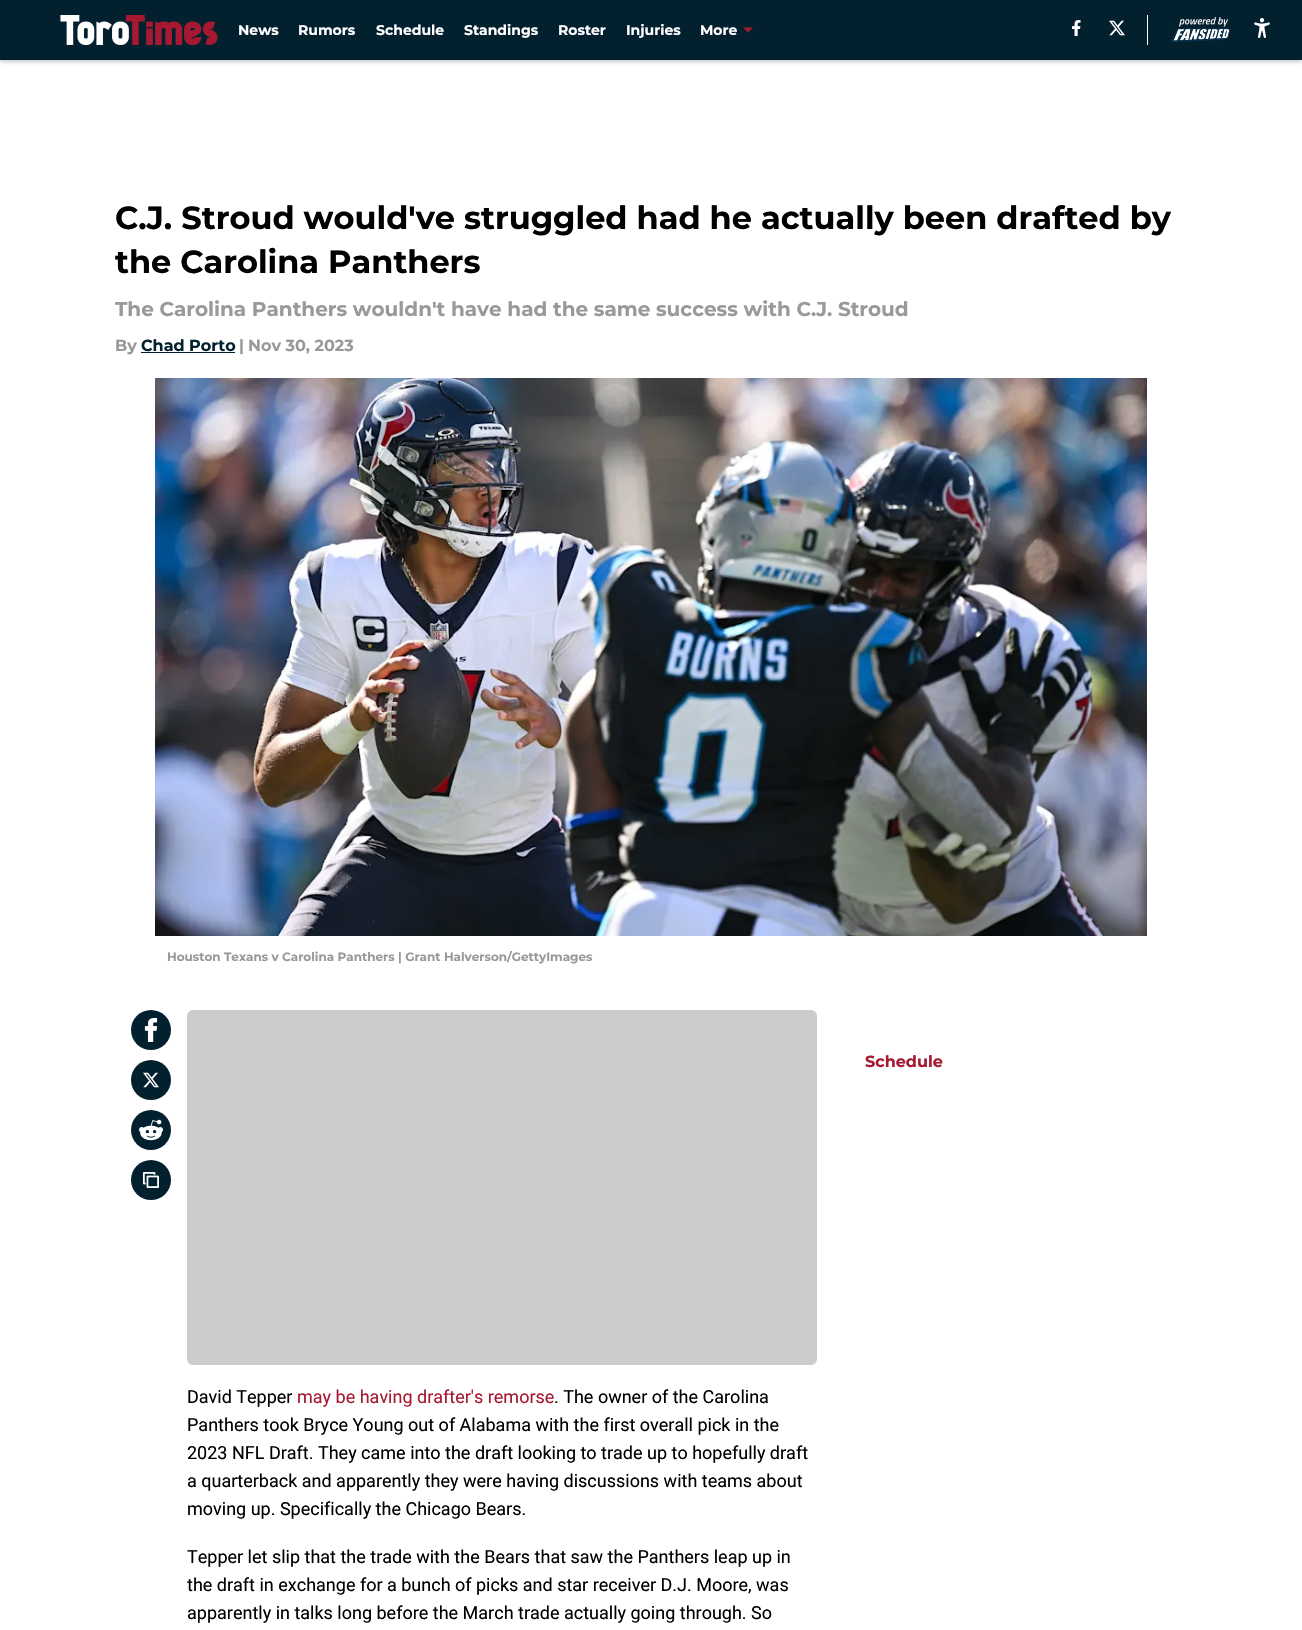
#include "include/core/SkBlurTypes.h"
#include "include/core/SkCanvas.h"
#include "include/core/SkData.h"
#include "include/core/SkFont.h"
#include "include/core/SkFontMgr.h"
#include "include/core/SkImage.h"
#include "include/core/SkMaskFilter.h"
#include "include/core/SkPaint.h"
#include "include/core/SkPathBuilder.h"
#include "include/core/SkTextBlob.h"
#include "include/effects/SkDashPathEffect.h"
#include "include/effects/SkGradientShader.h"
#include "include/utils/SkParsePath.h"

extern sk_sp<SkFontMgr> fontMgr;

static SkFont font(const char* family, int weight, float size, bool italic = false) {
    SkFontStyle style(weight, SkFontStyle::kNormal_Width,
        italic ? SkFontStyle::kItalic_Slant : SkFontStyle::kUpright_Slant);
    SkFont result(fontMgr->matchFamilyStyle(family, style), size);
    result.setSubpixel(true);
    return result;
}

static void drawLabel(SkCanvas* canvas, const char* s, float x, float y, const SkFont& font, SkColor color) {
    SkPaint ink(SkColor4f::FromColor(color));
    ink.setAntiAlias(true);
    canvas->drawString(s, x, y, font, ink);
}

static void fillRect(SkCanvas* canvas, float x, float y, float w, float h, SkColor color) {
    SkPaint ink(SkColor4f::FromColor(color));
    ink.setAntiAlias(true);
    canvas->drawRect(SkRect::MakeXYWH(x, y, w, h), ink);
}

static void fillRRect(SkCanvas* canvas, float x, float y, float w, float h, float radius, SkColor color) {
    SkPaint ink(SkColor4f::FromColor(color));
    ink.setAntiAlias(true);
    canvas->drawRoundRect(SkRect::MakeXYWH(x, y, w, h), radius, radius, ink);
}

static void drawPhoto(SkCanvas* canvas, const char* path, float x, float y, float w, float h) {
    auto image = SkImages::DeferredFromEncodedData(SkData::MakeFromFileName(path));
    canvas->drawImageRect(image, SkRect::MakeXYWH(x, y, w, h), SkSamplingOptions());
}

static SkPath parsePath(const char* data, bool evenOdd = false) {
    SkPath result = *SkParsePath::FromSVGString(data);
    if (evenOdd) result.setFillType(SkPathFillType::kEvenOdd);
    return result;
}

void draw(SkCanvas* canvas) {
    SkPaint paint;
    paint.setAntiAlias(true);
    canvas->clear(0xFFFFFFFF);
    paint.setColor(0x33000000);
    paint.setMaskFilter(SkMaskFilter::MakeBlur(kNormal_SkBlurStyle, 2));
    canvas->drawRect(SkRect::MakeXYWH(0, 2, 1302, 60), paint);
    paint.setMaskFilter(nullptr);
    fillRect(canvas, 0, 0, 1302, 60, 0xFF03202F);
    drawPhoto(canvas, "assets/img1.png", 60, 15, 158, 30);
    SkFont font1 = font("Montserrat", 100, 14);
    drawLabel(canvas, "News", 238, 35, font1, 0xFFFFFFFF);
    drawLabel(canvas, "Rumors", 298, 35, font1, 0xFFFFFFFF);
    drawLabel(canvas, "Schedule", 376, 35, font1, 0xFFFFFFFF);
    drawLabel(canvas, "Standings", 464, 35, font1, 0xFFFFFFFF);
    drawLabel(canvas, "Roster", 558, 35, font1, 0xFFFFFFFF);
    drawLabel(canvas, "Injuries", 626, 35, font1, 0xFFFFFFFF);
    drawLabel(canvas, "More", 700, 35, font1, 0xFFFFFFFF);
    paint.setColor(0xFFA71930);
    canvas->drawPath(parsePath("M743 27.5L748 32.5L753 27.5Z", true), paint);
    drawPhoto(canvas, "assets/img2.png", 1072, 20, 9, 16);
    drawPhoto(canvas, "assets/img3.png", 1109, 20, 16, 16);
    fillRect(canvas, 1147, 15, 1, 30, 0xFFFFFFFF);
    drawPhoto(canvas, "assets/img4.png", 1171, 17, 59, 26);
    drawPhoto(canvas, "assets/img5.png", 1254, 18, 16, 20);
    SkFont font2 = font("Montserrat", 100, 32);
    drawLabel(canvas, "C.J. Stroud would've struggled had he actually been drafted by", 115, 229, font2, 0xFF000000);
    drawLabel(canvas, "the Carolina Panthers", 115, 273, font2, 0xFF000000);
    SkFont font3 = font("Montserrat", 100, 20);
    drawLabel(canvas, "The Carolina Panthers wouldn't have had the same success with C.J. Stroud", 115, 316, font3, 0xFF999999);
    SkFont font4 = font("Montserrat", 100, 16);
    drawLabel(canvas, "By", 115, 351, font4, 0xFF999999);
    drawLabel(canvas, "Chad Porto", 141, 351, font4, 0xFF03202F);
    fillRect(canvas, 141, 352, 94, 1, 0xFF03202F);
    drawLabel(canvas, "|", 239, 351, font4, 0xFF999999);
    drawLabel(canvas, "Nov 30, 2023", 248, 351, font4, 0xFF999999);
    drawPhoto(canvas, "assets/img6.png", 155, 378, 992, 558);
    SkFont font5 = font("Montserrat", 100, 12);
    drawLabel(canvas, "Houston Texans v Carolina Panthers | Grant Halverson/GettyImages", 167, 961, font5, 0xFF999999);
    drawLabel(canvas, "Schedule", 865, 1067, font4, 0xFFA71930);
    paint.setColor(0xFF03202F);
    canvas->drawCircle(151, 1030, 20, paint);
    drawPhoto(canvas, "assets/img7.png", 144, 1018, 14, 24);
    canvas->drawCircle(151, 1080, 20, paint);
    drawPhoto(canvas, "assets/img3.png", 143, 1072, 16, 16);
    canvas->drawCircle(151, 1130, 20, paint);
    drawPhoto(canvas, "assets/img8.png", 139, 1119, 24, 22);
    canvas->drawCircle(151, 1180, 20, paint);
    drawPhoto(canvas, "assets/img9.png", 143, 1172, 16, 16);
    fillRRect(canvas, 187, 1010, 630, 355, 6, 0xFFCCCCCC);
    SkFont font6 = font("Roboto", 400, 18);
    drawLabel(canvas, "David Tepper", 187, 1403, font6, 0xFF000000);
    drawLabel(canvas, "may be having drafter's remorse", 297, 1403, font6, 0xFFA71930);
    drawLabel(canvas, ". The owner of the Carolina", 554, 1403, font6, 0xFF000000);
    drawLabel(canvas, "Panthers took Bryce Young out of Alabama with the first overall pick in the", 187, 1431, font6, 0xFF000000);
    drawLabel(canvas, "2023 NFL Draft. They came into the draft looking to trade up to hopefully draft", 187, 1459, font6, 0xFF000000);
    drawLabel(canvas, "a quarterback and apparently they were having discussions with teams about", 187, 1487, font6, 0xFF000000);
    drawLabel(canvas, "moving up. Specifically the Chicago Bears.", 187, 1515, font6, 0xFF000000);
    drawLabel(canvas, "Tepper let slip that the trade with the Bears that saw the Panthers leap up in", 187, 1563, font6, 0xFF000000);
    drawLabel(canvas, "the draft in exchange for a bunch of picks and star receiver D.J. Moore, was", 187, 1591, font6, 0xFF000000);
    drawLabel(canvas, "apparently in talks long before the March trade actually going through. So", 187, 1619, font6, 0xFF000000);
}
